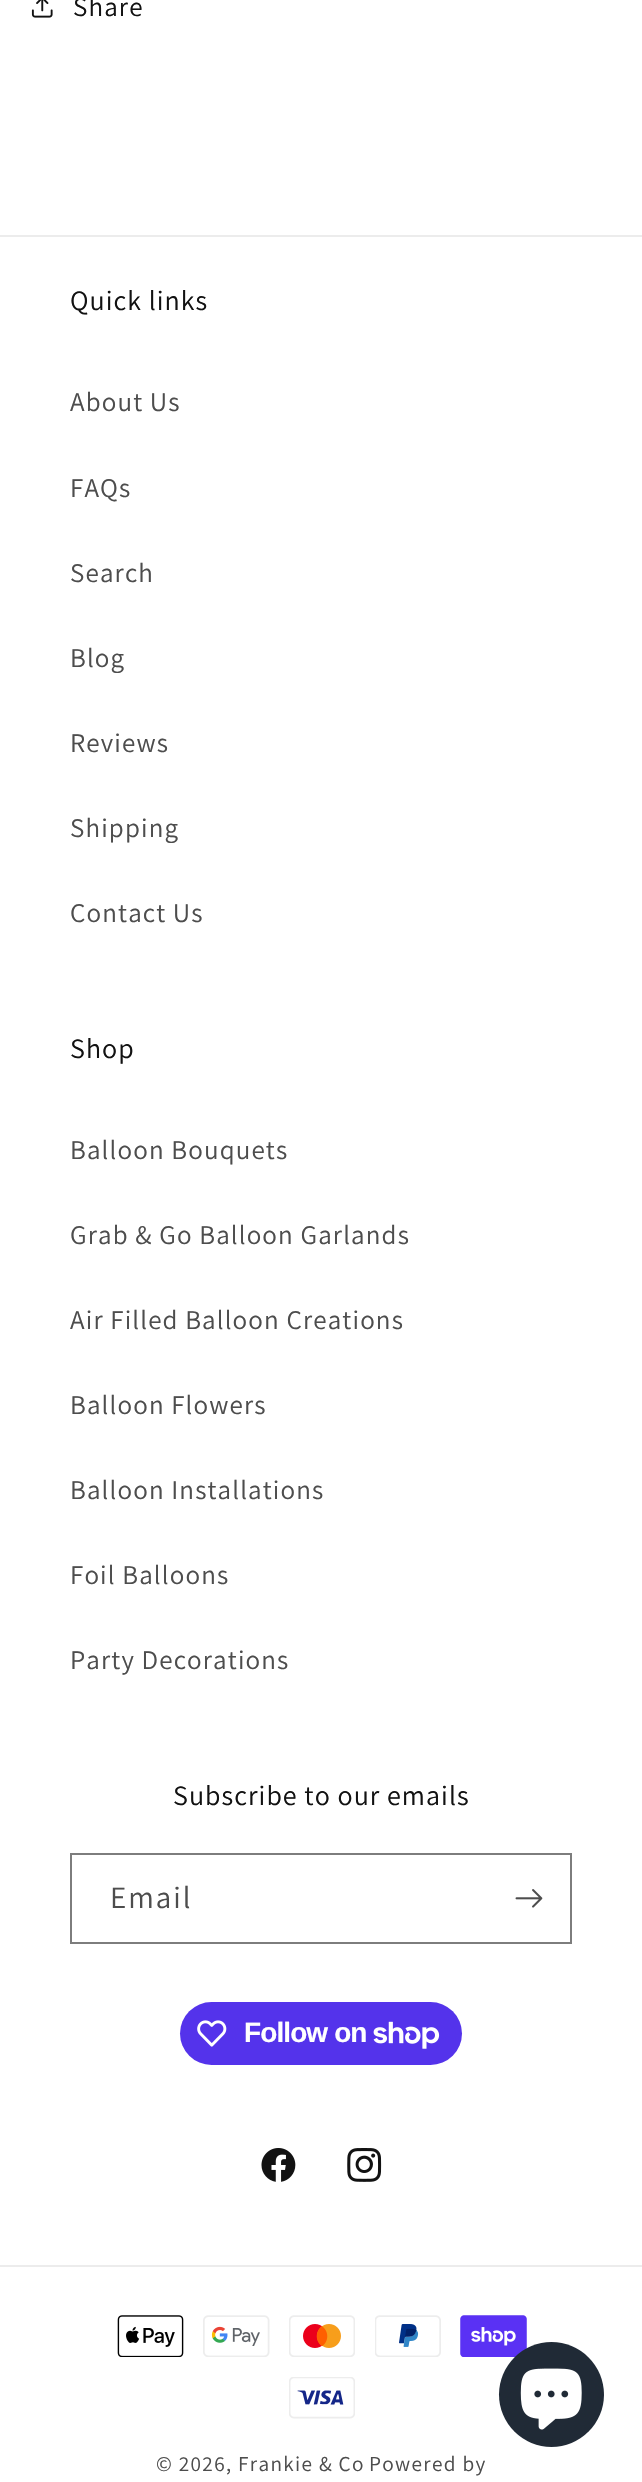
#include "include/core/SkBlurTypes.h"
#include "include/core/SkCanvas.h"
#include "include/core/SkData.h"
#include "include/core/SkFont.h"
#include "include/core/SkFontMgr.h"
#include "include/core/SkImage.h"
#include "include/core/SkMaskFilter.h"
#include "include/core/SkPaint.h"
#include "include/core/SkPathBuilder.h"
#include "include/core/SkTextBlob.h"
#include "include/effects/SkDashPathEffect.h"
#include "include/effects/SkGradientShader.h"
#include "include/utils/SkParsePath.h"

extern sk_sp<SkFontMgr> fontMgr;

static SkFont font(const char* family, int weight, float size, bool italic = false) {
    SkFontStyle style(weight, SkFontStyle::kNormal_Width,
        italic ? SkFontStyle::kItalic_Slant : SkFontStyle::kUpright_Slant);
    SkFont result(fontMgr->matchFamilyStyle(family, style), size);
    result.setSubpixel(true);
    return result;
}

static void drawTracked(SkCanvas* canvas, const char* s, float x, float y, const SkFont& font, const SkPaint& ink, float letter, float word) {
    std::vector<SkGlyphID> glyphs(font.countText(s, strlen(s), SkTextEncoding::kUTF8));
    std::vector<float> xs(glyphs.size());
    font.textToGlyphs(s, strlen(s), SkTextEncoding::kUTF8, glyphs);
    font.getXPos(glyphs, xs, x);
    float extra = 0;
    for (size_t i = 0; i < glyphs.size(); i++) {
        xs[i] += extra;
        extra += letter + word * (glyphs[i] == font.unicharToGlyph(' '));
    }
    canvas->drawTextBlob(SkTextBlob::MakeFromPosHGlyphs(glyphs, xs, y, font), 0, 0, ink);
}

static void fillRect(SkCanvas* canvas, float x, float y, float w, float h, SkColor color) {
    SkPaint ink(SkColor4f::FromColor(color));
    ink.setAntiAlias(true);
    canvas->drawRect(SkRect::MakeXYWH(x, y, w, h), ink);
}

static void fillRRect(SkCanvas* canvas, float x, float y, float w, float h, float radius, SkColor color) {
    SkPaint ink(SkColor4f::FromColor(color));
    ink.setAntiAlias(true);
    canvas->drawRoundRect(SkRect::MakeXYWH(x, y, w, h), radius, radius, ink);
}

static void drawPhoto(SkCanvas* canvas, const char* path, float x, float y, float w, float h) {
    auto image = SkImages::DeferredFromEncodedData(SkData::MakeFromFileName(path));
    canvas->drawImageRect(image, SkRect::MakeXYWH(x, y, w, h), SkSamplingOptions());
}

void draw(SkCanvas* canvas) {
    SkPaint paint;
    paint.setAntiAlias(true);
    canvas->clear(0xFFFFFFFF);
    drawPhoto(canvas, "assets/img1.png", 31, 0, 22, 18);
    SkFont font1 = font("Assistant", 400, 27);
    paint.setColor(0xFF121212);
    drawTracked(canvas, "Share", 73, 16, font1, paint, 1.15f, 0);
    fillRect(canvas, 0, 235, 642, 2, 0xFFECECEC);
    SkFont font2 = font("Assistant", 400, 28);
    drawTracked(canvas, "Quick links", 70, 310, font2, paint, 1.05f, 0);
    paint.setColor(0xFF4D4D4D);
    drawTracked(canvas, "About Us", 70, 411, font1, paint, 1.15f, 0);
    drawTracked(canvas, "FAQs", 70, 497, font1, paint, 1.15f, 0);
    drawTracked(canvas, "Search", 70, 582, font1, paint, 1.15f, 0);
    drawTracked(canvas, "Blog", 70, 667, font1, paint, 1.15f, 0);
    drawTracked(canvas, "Reviews", 70, 752, font1, paint, 1.15f, 0);
    drawTracked(canvas, "Shipping", 70, 837, font1, paint, 1.15f, 0);
    drawTracked(canvas, "Contact Us", 70, 922, font1, paint, 1.15f, 0);
    paint.setColor(0xFF121212);
    drawTracked(canvas, "Shop", 70, 1058, font2, paint, 1.05f, 0);
    paint.setColor(0xFF4D4D4D);
    drawTracked(canvas, "Balloon Bouquets", 70, 1159, font1, paint, 1.15f, 0);
    drawTracked(canvas, "Grab & Go Balloon Garlands", 70, 1244, font1, paint, 1.15f, 0);
    drawTracked(canvas, "Air Filled Balloon Creations", 70, 1329, font1, paint, 1.15f, 0);
    drawTracked(canvas, "Balloon Flowers", 70, 1414, font1, paint, 1.15f, 0);
    drawTracked(canvas, "Balloon Installations", 70, 1499, font1, paint, 1.15f, 0);
    drawTracked(canvas, "Foil Balloons", 70, 1584, font1, paint, 1.15f, 0);
    drawTracked(canvas, "Party Decorations", 70, 1669, font1, paint, 1.15f, 0);
    paint.setColor(0xFF121212);
    drawTracked(canvas, "Subscribe to our emails", 173, 1805, font2, paint, 1.05f, 0);
    paint.setStroke(true);
    paint.setStrokeWidth(2);
    paint.setColor(0xFF7D7D7D);
    canvas->drawRect(SkRect::MakeXYWH(71, 1854, 500, 89), paint);
    SkFont font3 = font("Assistant", 400, 31);
    paint.setStroke(false);
    paint.setColor(0xFF4D4D4D);
    drawTracked(canvas, "Email", 110, 1908, font3, paint, 2, 0);
    drawPhoto(canvas, "assets/img2.png", 515, 1889, 28, 19);
    fillRRect(canvas, 180, 2002, 282, 63, 31.5f, 0xFF5433EB);
    drawPhoto(canvas, "assets/img3.png", 197, 2020, 30, 27);
    SkFont font4 = font("Liberation Sans", 700, 28);
    paint.setColor(0xFFFFFFFF);
    drawTracked(canvas, "Follow on", 244, 2042, font4, paint, -0.9f, 0);
    drawPhoto(canvas, "assets/img4.png", 373, 2021, 67, 28);
    drawPhoto(canvas, "assets/img5.png", 261, 2148, 35, 34);
    drawPhoto(canvas, "assets/img6.png", 347, 2148, 35, 34);
    fillRect(canvas, 0, 2265, 642, 2, 0xFFECECEC);
    drawPhoto(canvas, "assets/img7.png", 117, 2315, 67, 42);
    drawPhoto(canvas, "assets/img8.png", 203, 2315, 67, 42);
    drawPhoto(canvas, "assets/img9.png", 289, 2315, 66, 42);
    drawPhoto(canvas, "assets/img10.png", 375, 2315, 66, 42);
    drawPhoto(canvas, "assets/img11.png", 460, 2315, 67, 42);
    drawPhoto(canvas, "assets/img12.png", 289, 2377, 66, 42);
    SkFont font5 = font("Assistant", 400, 21.25f);
    paint.setColor(0xFF4D4D4D);
    drawTracked(canvas, "© 2026, Frankie & Co", 156, 2471, font5, paint, 1.35f, 0);
    drawTracked(canvas, "Powered by", 369, 2471, font5, paint, 1.35f, 0);
    paint.setColor(0xFF202A36);
    canvas->drawCircle(551.5f, 2394.5f, 52.5f, paint);
    drawPhoto(canvas, "assets/img13.png", 520, 2368, 62, 62);
}
